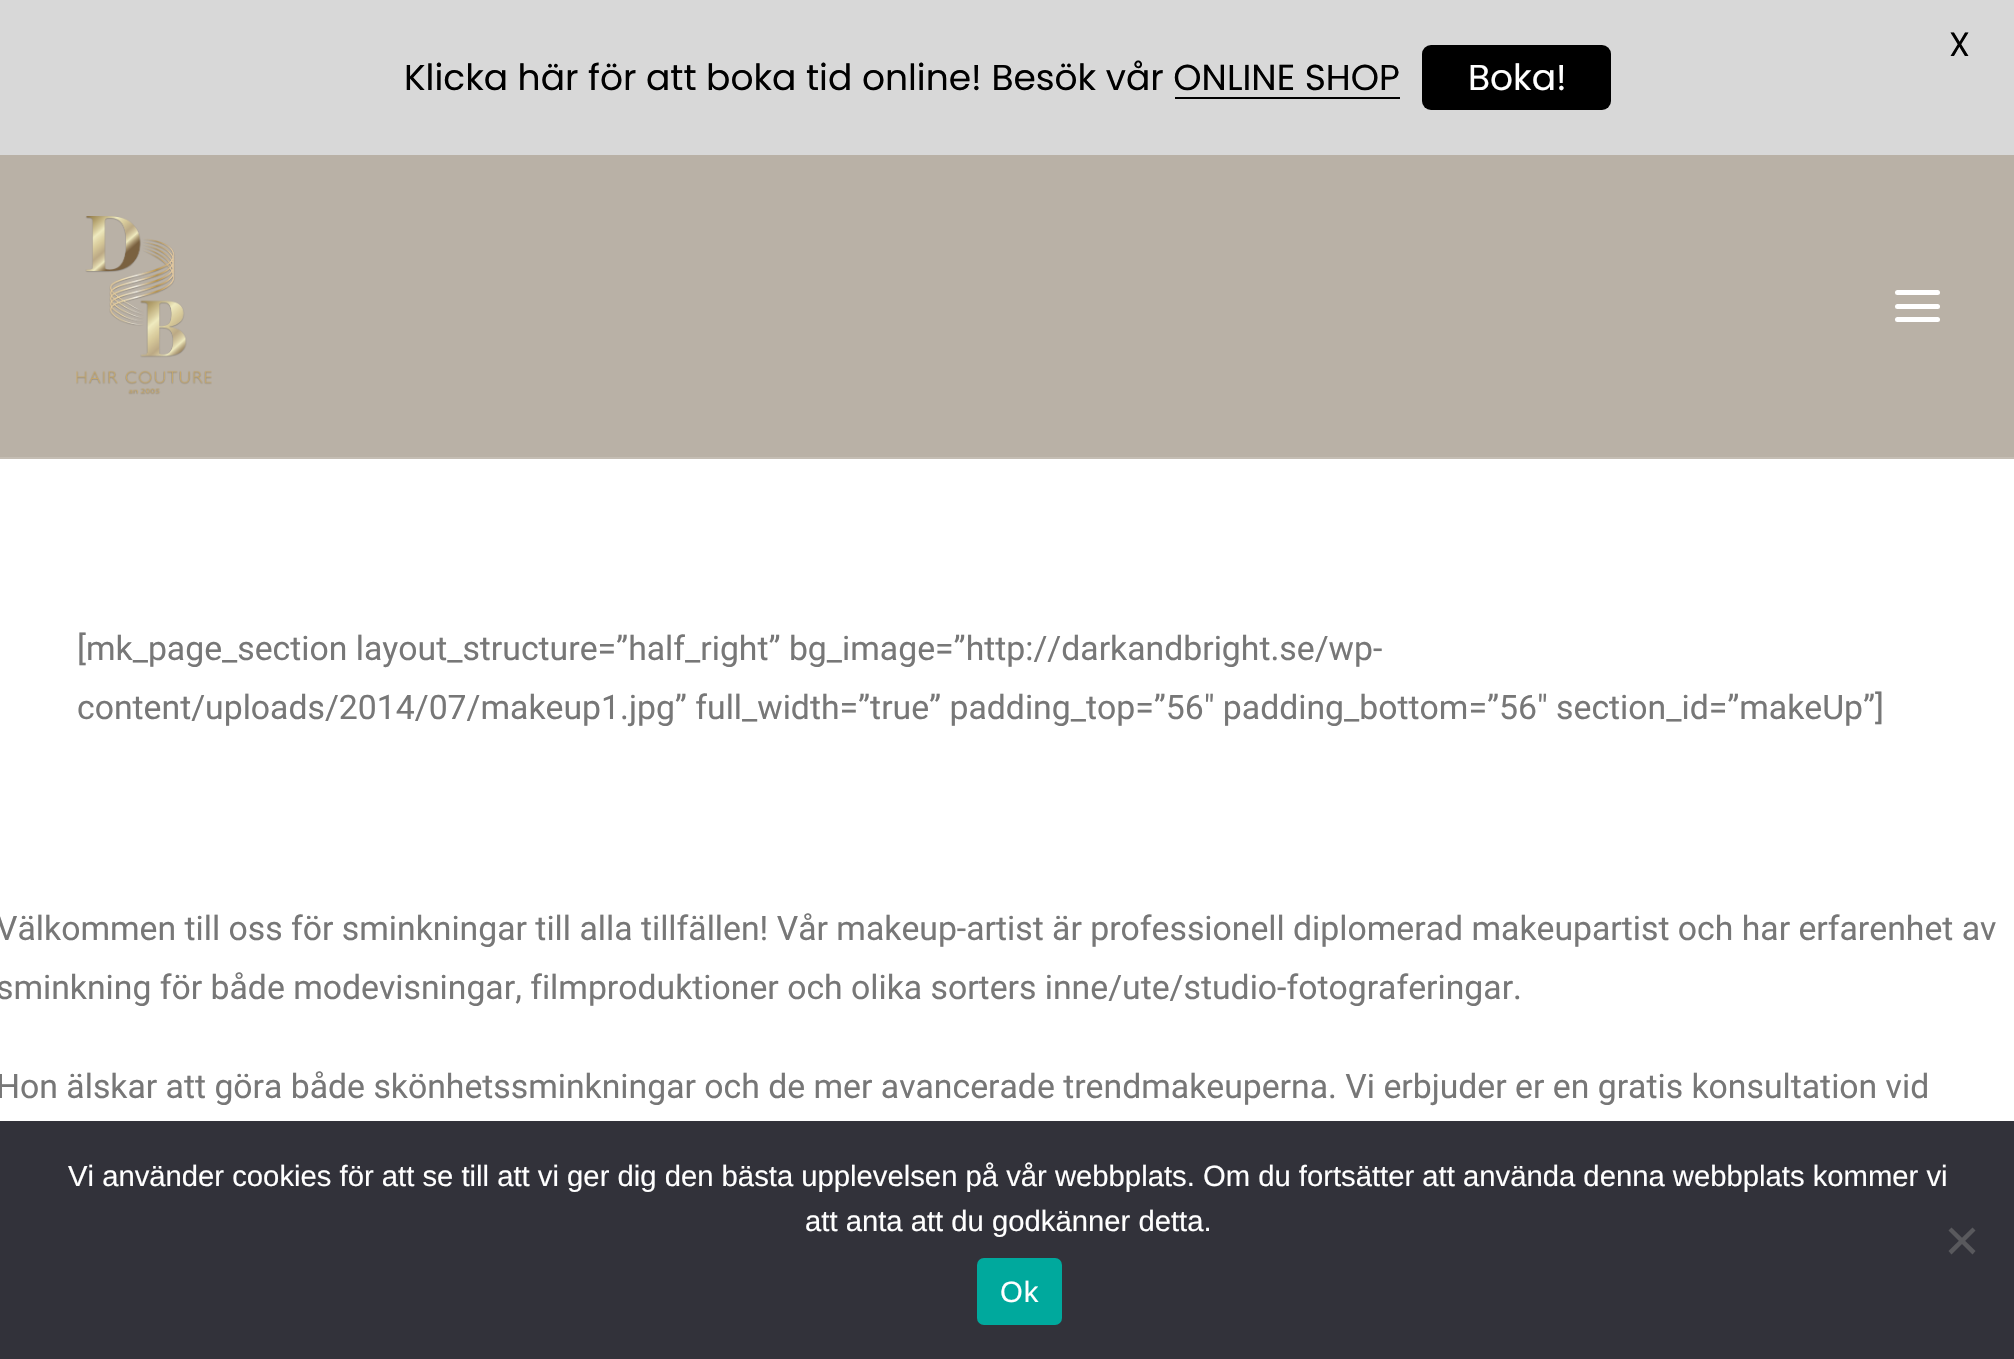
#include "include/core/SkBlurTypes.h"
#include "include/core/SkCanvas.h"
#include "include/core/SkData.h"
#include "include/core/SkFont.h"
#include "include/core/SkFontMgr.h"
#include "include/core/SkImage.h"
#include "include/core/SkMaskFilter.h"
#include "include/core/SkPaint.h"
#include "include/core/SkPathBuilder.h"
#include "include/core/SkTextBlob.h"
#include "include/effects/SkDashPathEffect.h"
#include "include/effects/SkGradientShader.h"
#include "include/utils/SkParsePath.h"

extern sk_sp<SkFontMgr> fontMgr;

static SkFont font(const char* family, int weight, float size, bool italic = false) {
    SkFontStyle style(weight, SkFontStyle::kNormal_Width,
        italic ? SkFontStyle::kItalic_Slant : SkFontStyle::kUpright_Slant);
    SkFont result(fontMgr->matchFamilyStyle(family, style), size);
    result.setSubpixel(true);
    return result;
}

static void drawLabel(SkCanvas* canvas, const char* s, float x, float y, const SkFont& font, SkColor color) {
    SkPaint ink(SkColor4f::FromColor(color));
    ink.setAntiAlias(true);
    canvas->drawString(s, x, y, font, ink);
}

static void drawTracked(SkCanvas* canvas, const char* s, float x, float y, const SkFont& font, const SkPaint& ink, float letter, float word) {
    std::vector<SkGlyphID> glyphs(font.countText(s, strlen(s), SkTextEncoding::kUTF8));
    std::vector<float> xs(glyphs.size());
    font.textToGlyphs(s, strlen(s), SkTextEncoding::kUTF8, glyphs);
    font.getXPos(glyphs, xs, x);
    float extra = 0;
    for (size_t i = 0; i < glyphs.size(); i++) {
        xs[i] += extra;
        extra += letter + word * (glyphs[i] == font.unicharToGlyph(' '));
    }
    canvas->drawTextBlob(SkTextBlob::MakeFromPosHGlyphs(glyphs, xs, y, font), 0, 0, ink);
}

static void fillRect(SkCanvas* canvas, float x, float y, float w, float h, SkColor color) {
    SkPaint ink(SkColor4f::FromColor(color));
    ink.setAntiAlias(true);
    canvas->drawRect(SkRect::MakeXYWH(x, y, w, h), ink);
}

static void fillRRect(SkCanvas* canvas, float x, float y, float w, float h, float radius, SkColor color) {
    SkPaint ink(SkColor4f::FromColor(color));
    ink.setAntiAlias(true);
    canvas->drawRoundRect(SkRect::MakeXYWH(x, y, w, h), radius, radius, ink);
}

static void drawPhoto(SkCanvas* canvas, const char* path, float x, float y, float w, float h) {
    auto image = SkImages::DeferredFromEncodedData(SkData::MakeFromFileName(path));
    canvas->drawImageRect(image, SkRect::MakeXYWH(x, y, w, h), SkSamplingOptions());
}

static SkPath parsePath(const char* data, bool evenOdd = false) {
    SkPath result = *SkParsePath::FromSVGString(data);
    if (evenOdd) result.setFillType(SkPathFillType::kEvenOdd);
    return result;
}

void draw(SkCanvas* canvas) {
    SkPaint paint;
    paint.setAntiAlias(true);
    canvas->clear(0xFFFFFFFF);
    fillRect(canvas, 0, 0, 2014, 155, 0xFFD8D8D8);
    SkFont font1 = font("Poppins", 400, 33.75f);
    drawLabel(canvas, "X", 1949, 56, font1, 0xFF000000);
    SkFont font2 = font("Poppins", 400, 36);
    drawLabel(canvas, "Klicka här för att boka tid online! Besök vår ONLINE SHOP", 404, 90, font2, 0xFF000000);
    fillRect(canvas, 1175, 97, 225, 2, 0xFF000000);
    fillRRect(canvas, 1422, 45, 189, 65, 9, 0xFF000000);
    drawLabel(canvas, "Boka!", 1468, 90, font2, 0xFFFFFFFF);
    fillRect(canvas, 0, 155, 2014, 302, 0xFFB9B1A6);
    fillRect(canvas, 0, 457, 2014, 2, 0xFFC4BDB3);
    drawPhoto(canvas, "assets/img1.png", 76, 216, 136, 179);
    fillRRect(canvas, 1895, 304, 45, 5, 2.5f, 0xFFFFFFFF);
    fillRRect(canvas, 1895, 290, 45, 5, 2.5f, 0xFFFFFFFF);
    fillRRect(canvas, 1895, 317, 45, 5, 2.5f, 0xFFFFFFFF);
    SkFont font3 = font("Roboto", 400, 33.75f);
    drawLabel(canvas, "[mk_page_section layout_structure=”half_right” bg_image=”http://darkandbright.se/wp-", 77, 660, font3, 0xFF777777);
    drawLabel(canvas, "content/uploads/2014/07/makeup1.jpg” full_width=”true” padding_top=”56″ padding_bottom=”56″ section_id=”makeUp”]", 77, 719, font3, 0xFF777777);
    drawLabel(canvas, "Välkommen till oss för sminkningar till alla tillfällen! Vår makeup-artist är professionell diplomerad makeupartist och har erfarenhet av", -4, 940, font3, 0xFF777777);
    drawLabel(canvas, "sminkning för både modevisningar, filmproduktioner och olika sorters inne/ute/studio-fotograferingar.", -4, 999, font3, 0xFF777777);
    drawLabel(canvas, "Hon älskar att göra både skönhetssminkningar och de mer avancerade trendmakeuperna. Vi erbjuder er en gratis konsultation vid", -4, 1098, font3, 0xFF777777);
    fillRect(canvas, 0, 1121, 2014, 238, 0xFF32323A);
    SkFont font4 = font("Liberation Sans", 400, 29.25f);
    drawLabel(canvas, "Vi använder cookies för att se till att vi ger dig den bästa upplevelsen på vår webbplats. Om du fortsätter att använda denna webbplats kommer vi", 68, 1186, font4, 0xFFFFFFFF);
    drawLabel(canvas, "att anta att du godkänner detta.", 805, 1231, font4, 0xFFFFFFFF);
    paint.setColor(0xFF59595D);
    canvas->drawPath(parsePath("M1972.5 1227.5L1975.5 1230.5L1951.5 1254.5L1948.5 1251Z"), paint);
    canvas->drawPath(parsePath("M1948.5 1230.5L1951.5 1227.5L1975.5 1251L1972.5 1254.5Z"), paint);
    fillRRect(canvas, 977, 1258, 85, 67, 7, 0xFF00A99D);
    paint.setColor(0xFFFFFFFF);
    drawTracked(canvas, "Ok", 1000, 1302, font4, paint, 1, 0);
}
